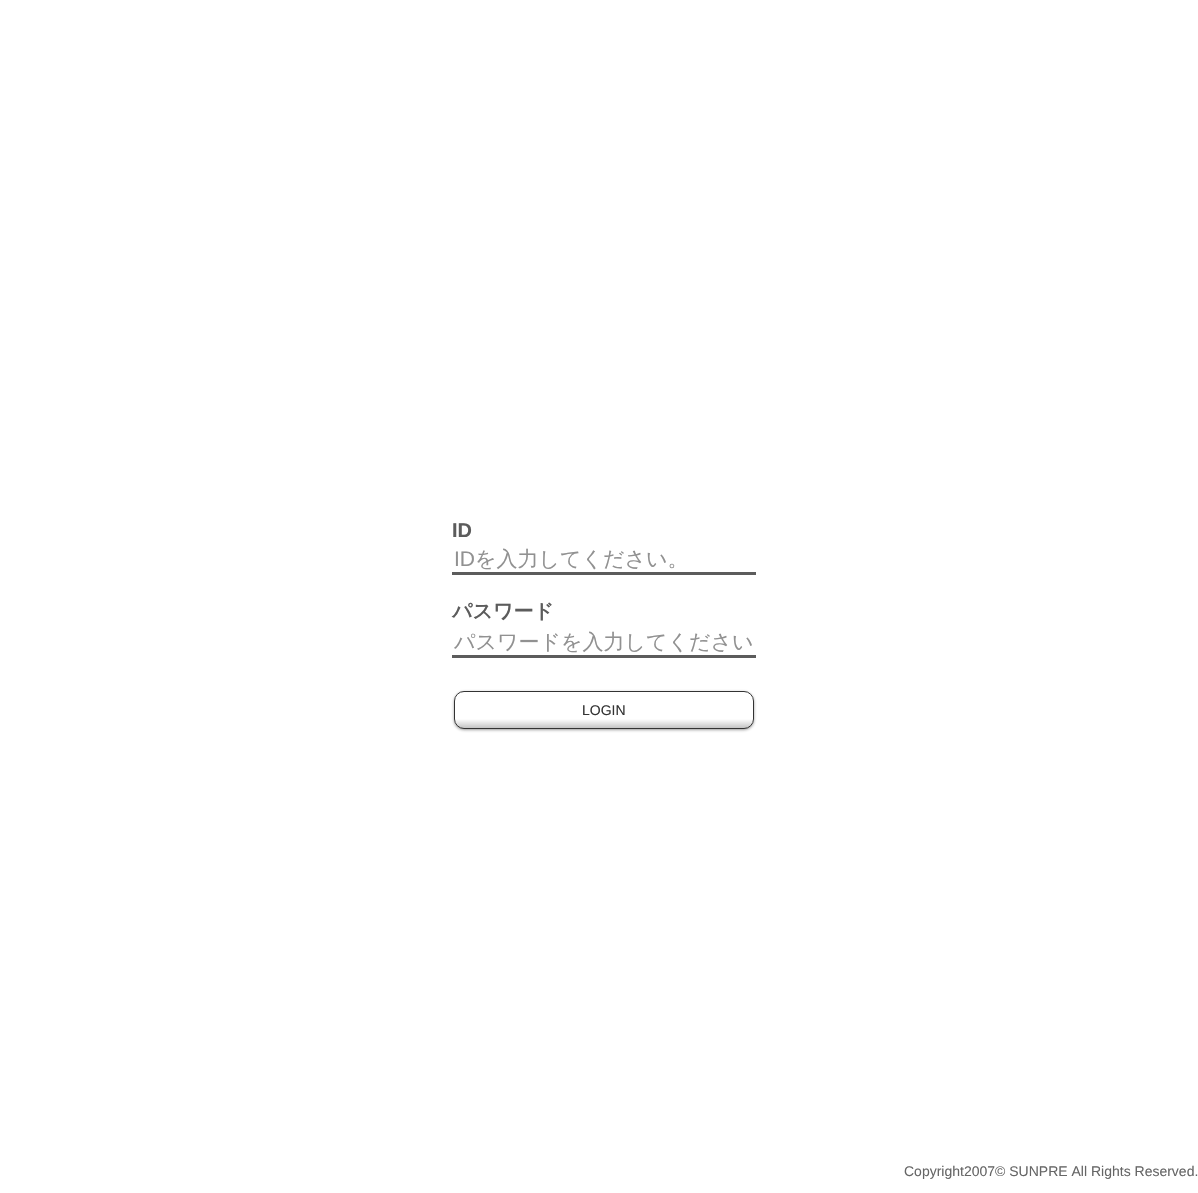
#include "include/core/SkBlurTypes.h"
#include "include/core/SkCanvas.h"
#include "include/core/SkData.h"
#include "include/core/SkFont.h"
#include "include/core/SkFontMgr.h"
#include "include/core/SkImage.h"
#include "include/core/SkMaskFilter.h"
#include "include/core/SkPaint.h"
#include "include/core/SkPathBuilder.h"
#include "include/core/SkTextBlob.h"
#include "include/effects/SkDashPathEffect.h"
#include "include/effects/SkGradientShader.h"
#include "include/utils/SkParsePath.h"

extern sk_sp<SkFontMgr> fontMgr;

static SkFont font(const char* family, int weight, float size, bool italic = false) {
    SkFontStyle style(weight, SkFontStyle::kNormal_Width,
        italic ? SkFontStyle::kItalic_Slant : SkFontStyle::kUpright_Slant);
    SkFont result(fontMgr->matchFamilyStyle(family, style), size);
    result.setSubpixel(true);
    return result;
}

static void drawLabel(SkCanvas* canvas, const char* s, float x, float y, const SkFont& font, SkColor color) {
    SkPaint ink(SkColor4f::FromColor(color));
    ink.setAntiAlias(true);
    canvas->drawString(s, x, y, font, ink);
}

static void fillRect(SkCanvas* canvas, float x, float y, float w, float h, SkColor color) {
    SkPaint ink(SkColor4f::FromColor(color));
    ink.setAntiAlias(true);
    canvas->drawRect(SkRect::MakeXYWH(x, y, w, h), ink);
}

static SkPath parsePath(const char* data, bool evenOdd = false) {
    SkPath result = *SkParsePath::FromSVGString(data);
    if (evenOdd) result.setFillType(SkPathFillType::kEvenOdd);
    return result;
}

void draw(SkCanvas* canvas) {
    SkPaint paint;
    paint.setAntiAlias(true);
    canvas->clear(0xFFFFFFFF);
    SkFont font1 = font("Liberation Sans", 700, 20);
    drawLabel(canvas, "ID", 452, 537, font1, 0xFF5C5C5C);
    fillRect(canvas, 452, 572, 304, 3, 0xFF5C5C5C);
    SkFont font2 = font("Liberation Sans", 400, 21);
    drawLabel(canvas, "ID", 454, 566, font2, 0xFF919191);
    SkFont font3 = font("WenQuanYi Zen Hei", 500, 21);
    drawLabel(canvas, "を入力してください。", 475, 566, font3, 0xFF919191);
    SkFont font4 = font("WenQuanYi Zen Hei", 700, 20);
    drawLabel(canvas, "パスワード", 452, 618, font4, 0xFF5C5C5C);
    fillRect(canvas, 452, 655, 304, 3, 0xFF5C5C5C);
    drawLabel(canvas, "パスワードを入力してください", 454, 649, font3, 0xFF919191);
    paint.setColor(0x80333333);
    paint.setMaskFilter(SkMaskFilter::MakeBlur(kNormal_SkBlurStyle, 1.5f));
    canvas->drawRoundRect(SkRect::MakeXYWH(454, 692, 300, 38), 10, 10, paint);
    paint.setMaskFilter(nullptr);
    canvas->save();
    canvas->clipPath(parsePath("M464 691H744C749.5 691 754 695.5 754 701V719C754 724.5 749.5 729 744 729H464C458.5 729 454 724.5 454 719V701C454 695.5 458.5 691 464 691Z"), true);
    {
        const SkColor colors[] = {0xFFFFFFFF, 0xFFFFFFFF, 0xFFC4C4C4};
        const float stops[] = {0, 0.75f, 1};
        const SkPoint ends[] = {{455, 692}, {455, 728}};
        paint.setShader(SkGradientShader::MakeLinear(ends, colors, stops, 3, SkTileMode::kClamp));
        paint.setAlpha(255);
    }
    canvas->drawRect(SkRect::MakeXYWH(454, 692, 300, 36), paint);
    canvas->restore();
    paint.setStroke(true);
    paint.setStrokeWidth(1);
    paint.setShader(nullptr);
    paint.setColor(0xFF333333);
    canvas->drawRoundRect(SkRect::MakeXYWH(454.5f, 691.5f, 299, 37), 9.5f, 9.5f, paint);
    SkFont font5 = font("Liberation Sans", 400, 14);
    drawLabel(canvas, "LOGIN", 582, 715, font5, 0xFF333333);
    drawLabel(canvas, "Copyright2007© SUNPRE All Rights Reserved.", 904, 1176, font5, 0xFF666666);
}
